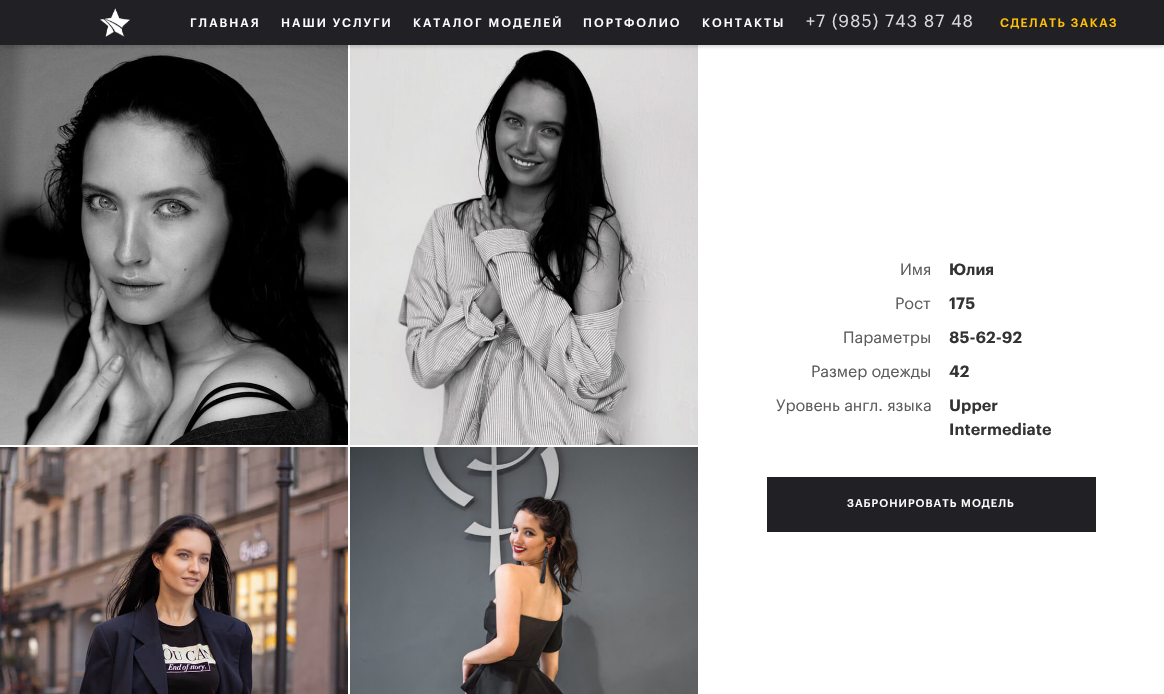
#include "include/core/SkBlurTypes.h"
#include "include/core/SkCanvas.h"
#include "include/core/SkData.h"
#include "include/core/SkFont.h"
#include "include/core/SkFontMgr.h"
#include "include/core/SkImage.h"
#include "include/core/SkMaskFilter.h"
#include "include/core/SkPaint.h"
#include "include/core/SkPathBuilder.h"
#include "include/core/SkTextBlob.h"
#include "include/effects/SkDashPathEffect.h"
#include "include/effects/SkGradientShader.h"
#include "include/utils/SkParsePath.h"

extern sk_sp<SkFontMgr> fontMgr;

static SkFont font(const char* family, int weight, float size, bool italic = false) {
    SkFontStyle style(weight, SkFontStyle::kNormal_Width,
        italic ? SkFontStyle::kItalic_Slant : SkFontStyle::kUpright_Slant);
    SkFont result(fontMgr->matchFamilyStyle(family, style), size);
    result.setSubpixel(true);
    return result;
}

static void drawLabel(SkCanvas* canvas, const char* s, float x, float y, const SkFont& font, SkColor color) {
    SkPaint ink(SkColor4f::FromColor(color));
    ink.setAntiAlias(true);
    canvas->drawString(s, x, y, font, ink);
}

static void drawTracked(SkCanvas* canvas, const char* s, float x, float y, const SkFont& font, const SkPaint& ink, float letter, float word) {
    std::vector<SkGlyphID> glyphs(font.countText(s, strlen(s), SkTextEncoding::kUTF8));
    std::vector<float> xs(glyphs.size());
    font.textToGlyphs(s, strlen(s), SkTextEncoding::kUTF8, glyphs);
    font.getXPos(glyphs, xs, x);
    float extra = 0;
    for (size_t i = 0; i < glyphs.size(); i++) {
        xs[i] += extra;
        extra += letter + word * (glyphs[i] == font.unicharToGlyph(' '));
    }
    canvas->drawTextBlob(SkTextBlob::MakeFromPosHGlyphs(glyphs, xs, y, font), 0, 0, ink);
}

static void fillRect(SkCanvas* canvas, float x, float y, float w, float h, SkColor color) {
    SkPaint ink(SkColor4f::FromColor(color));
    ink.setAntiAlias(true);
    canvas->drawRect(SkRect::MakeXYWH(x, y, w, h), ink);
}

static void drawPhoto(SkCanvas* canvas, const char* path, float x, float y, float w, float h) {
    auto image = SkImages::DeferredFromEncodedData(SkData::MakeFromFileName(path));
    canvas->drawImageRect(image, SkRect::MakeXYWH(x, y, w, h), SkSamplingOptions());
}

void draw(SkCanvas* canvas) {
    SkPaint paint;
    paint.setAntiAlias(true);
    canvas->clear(0xFFFFFFFF);
    drawPhoto(canvas, "assets/img2.png", 0, 45, 348, 400);
    drawPhoto(canvas, "assets/img3.png", 350, 45, 348, 400);
    paint.setColor(0x26000000);
    paint.setMaskFilter(SkMaskFilter::MakeBlur(kNormal_SkBlurStyle, 1.5f));
    canvas->drawRect(SkRect::MakeXYWH(0, 2, 1164, 45), paint);
    paint.setMaskFilter(nullptr);
    fillRect(canvas, 0, 0, 1164, 45, 0xFF212125);
    drawPhoto(canvas, "assets/img1.png", 100, 8, 30, 29);
    SkFont font1 = font("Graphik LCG", 500, 12);
    paint.setColor(0xFFFFFFFF);
    drawTracked(canvas, "ГЛАВНАЯ", 190, 27, font1, paint, 2, 0);
    drawTracked(canvas, "НАШИ УСЛУГИ", 281, 27, font1, paint, 2, 0);
    drawTracked(canvas, "КАТАЛОГ МОДЕЛЕЙ", 413, 27, font1, paint, 2, 0);
    drawTracked(canvas, "ПОРТФОЛИО", 583, 27, font1, paint, 2, 0);
    drawTracked(canvas, "КОНТАКТЫ", 702, 27, font1, paint, 2, 0);
    SkFont font2 = font("Graphik LCG", 400, 17);
    paint.setColor(0xFFDCDCDC);
    drawTracked(canvas, "+7 (985) 743 87 48", 806, 27, font2, paint, 1, 0);
    paint.setColor(0xFFFFC107);
    drawTracked(canvas, "СДЕЛАТЬ ЗАКАЗ", 1000, 27, font1, paint, 1.5f, 0);
    drawPhoto(canvas, "assets/img4.png", 0, 447, 348, 247);
    drawPhoto(canvas, "assets/img5.png", 350, 447, 348, 247);
    SkFont font3 = font("Graphik LCG", 400, 16);
    drawLabel(canvas, "Имя", 900, 275, font3, 0xFF5C5C5C);
    SkFont font4 = font("Graphik LCG", 600, 16);
    drawLabel(canvas, "Юлия", 949, 275, font4, 0xFF333333);
    drawLabel(canvas, "Рост", 895, 309, font3, 0xFF5C5C5C);
    drawLabel(canvas, "175", 949, 309, font4, 0xFF333333);
    drawLabel(canvas, "Параметры", 843, 343, font3, 0xFF5C5C5C);
    drawLabel(canvas, "85-62-92", 949, 343, font4, 0xFF333333);
    drawLabel(canvas, "Размер одежды", 811, 377, font3, 0xFF5C5C5C);
    drawLabel(canvas, "42", 949, 377, font4, 0xFF333333);
    drawLabel(canvas, "Уровень англ. языка", 776, 411, font3, 0xFF5C5C5C);
    drawLabel(canvas, "Upper", 949, 411, font4, 0xFF333333);
    drawLabel(canvas, "Intermediate", 949, 435, font4, 0xFF333333);
    fillRect(canvas, 767, 477, 329, 55, 0xFF212125);
    SkFont font5 = font("Graphik LCG", 500, 11);
    paint.setColor(0xFFFFFFFF);
    drawTracked(canvas, "ЗАБРОНИРОВАТЬ МОДЕЛЬ", 847, 507, font5, paint, 1, 0);
}
